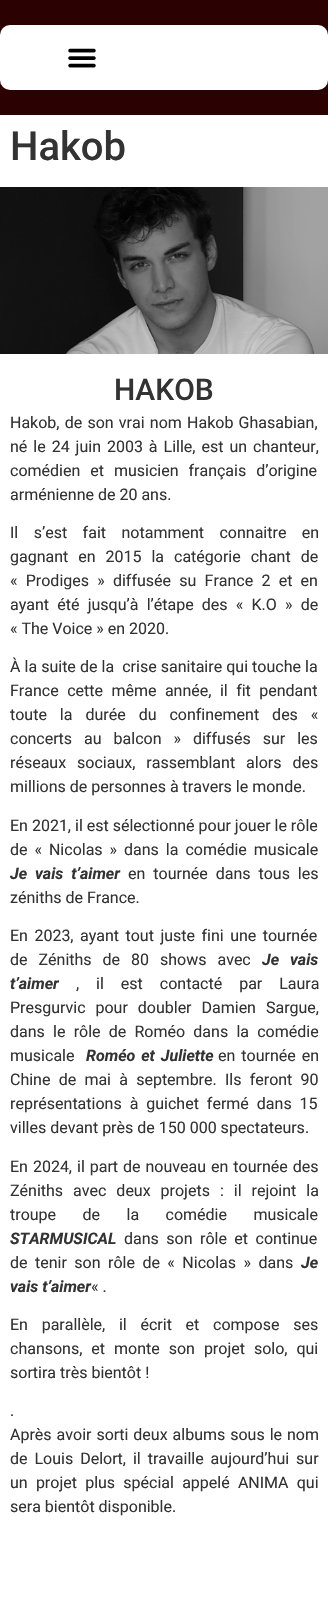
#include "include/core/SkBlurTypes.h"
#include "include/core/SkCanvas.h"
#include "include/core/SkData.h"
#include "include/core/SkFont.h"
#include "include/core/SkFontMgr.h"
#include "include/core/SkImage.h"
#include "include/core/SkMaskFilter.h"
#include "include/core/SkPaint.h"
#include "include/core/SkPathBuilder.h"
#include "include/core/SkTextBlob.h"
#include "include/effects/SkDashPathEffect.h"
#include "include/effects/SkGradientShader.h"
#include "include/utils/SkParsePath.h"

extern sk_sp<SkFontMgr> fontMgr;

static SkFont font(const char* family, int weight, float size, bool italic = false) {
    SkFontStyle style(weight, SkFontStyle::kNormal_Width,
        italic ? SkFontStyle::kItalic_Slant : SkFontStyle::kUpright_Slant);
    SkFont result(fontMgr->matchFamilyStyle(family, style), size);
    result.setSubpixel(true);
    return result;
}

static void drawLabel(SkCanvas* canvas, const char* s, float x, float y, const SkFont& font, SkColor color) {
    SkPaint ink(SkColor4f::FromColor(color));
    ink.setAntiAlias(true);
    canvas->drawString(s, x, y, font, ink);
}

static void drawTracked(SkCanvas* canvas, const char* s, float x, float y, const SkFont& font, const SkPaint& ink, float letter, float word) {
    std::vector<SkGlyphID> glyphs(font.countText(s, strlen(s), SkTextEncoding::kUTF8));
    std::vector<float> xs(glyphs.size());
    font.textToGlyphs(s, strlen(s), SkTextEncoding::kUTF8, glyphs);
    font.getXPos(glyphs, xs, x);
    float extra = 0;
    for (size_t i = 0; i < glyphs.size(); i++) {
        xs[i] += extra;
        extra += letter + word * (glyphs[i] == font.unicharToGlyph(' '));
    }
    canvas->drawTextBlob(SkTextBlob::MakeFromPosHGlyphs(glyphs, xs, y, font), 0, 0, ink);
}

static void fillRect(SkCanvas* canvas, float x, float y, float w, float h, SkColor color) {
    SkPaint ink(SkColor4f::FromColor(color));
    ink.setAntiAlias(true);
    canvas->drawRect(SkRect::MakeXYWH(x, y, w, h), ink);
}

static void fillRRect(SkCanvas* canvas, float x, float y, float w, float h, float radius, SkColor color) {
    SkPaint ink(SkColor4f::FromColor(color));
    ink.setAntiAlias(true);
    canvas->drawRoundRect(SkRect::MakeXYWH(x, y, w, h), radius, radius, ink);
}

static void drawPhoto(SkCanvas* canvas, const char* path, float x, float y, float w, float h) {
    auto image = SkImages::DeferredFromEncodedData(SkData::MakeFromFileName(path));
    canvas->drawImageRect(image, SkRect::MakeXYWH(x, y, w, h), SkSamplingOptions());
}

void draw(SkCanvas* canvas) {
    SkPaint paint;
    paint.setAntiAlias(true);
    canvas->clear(0xFFFFFFFF);
    fillRect(canvas, 0, 0, 328, 115, 0xFF2C0102);
    fillRRect(canvas, 0, 25, 328, 65, 10, 0xFFFFFFFF);
    drawPhoto(canvas, "assets/img1.png", 68, 48, 28, 20);
    SkFont font1 = font("Roboto", 500, 40);
    drawLabel(canvas, "Hakob", 10, 160, font1, 0xFF333333);
    drawPhoto(canvas, "assets/img2.png", 0, 187, 328, 167);
    SkFont font2 = font("Roboto", 500, 30);
    drawLabel(canvas, "HAKOB", 114, 400, font2, 0xFF333333);
    SkFont font3 = font("Roboto", 400, 16);
    paint.setColor(0xFF333333);
    drawTracked(canvas, "Hakob, de son vrai nom Hakob Ghasabian,", 10, 428, font3, paint, 0, 1.25f);
    drawTracked(canvas, "né le 24 juin 2003 à Lille, est un chanteur,", 10, 452, font3, paint, 0, 2);
    drawTracked(canvas, "comédien et musicien français d’origine", 10, 476, font3, paint, 0, 6);
    drawLabel(canvas, "arménienne de 20 ans.", 10, 500, font3, 0xFF333333);
    drawTracked(canvas, "Il s’est fait notamment connaitre en", 10, 538, font3, paint, 0, 11.5f);
    drawTracked(canvas, "gagnant en 2015 la catégorie chant de", 10, 562, font3, paint, 0, 6);
    drawTracked(canvas, "« Prodiges » diffusée su France 2 et en", 10, 586, font3, paint, 0, 4.25f);
    drawTracked(canvas, "ayant été jusqu’à l’étape des « K.O » de", 10, 610, font3, paint, 0, 4.25f);
    drawLabel(canvas, "« The Voice » en 2020.", 10, 634, font3, 0xFF333333);
    drawTracked(canvas, "À la suite de la  crise sanitaire qui touche la", 10, 672, font3, paint, 0, 0.1f);
    drawTracked(canvas, "France cette même année, il fit pendant", 10, 696, font3, paint, 0, 4.5f);
    drawTracked(canvas, "toute la durée du confinement des «", 10, 720, font3, paint, 0, 9);
    drawTracked(canvas, "concerts au balcon » diffusés sur les", 10, 744, font3, paint, 0, 8);
    drawTracked(canvas, "réseaux sociaux, rassemblant alors des", 10, 768, font3, paint, 0, 7);
    drawLabel(canvas, "millions de personnes à travers le monde.", 10, 792, font3, 0xFF333333);
    drawLabel(canvas, "En 2021, il est sélectionné pour jouer le rôle", 10, 831, font3, 0xFF333333);
    drawTracked(canvas, "de « Nicolas » dans la comédie musicale", 10, 855, font3, paint, 0, 3);
    SkFont font4 = font("Roboto", 700, 16, true);
    drawTracked(canvas, "Je vais t’aimer", 10, 879, font4, paint, 0, 4);
    drawTracked(canvas, "en tournée dans tous les", 128, 879, font3, paint, 0, 4);
    drawLabel(canvas, "zéniths de France.", 10, 903, font3, 0xFF333333);
    drawTracked(canvas, "En 2023, ayant tout juste fini une tournée", 10, 941, font3, paint, 0, 2.5f);
    drawTracked(canvas, "de Zéniths de 80 shows avec", 10, 965, font3, paint, 0, 7);
    drawTracked(canvas, "Je vais", 262, 965, font4, paint, 0, 7);
    drawLabel(canvas, "t’aimer", 10, 989, font4, 0xFF333333);
    drawTracked(canvas, ", il est contacté par Laura", 76, 989, font3, paint, 0, 13);
    drawTracked(canvas, "Presgurvic pour doubler Damien Sargue,", 10, 1013, font3, paint, 0, 6);
    drawTracked(canvas, "dans le rôle de Roméo dans la comédie", 10, 1037, font3, paint, 0, 4.25f);
    drawLabel(canvas, "musicale", 10, 1061, font3, 0xFF333333);
    drawTracked(canvas, "Roméo et Juliette", 86, 1061, font4, paint, 0, 2);
    drawTracked(canvas, "en tournée en", 218, 1061, font3, paint, 0, 2);
    drawTracked(canvas, "Chine de mai à septembre. Ils feront 90", 10, 1085, font3, paint, 0, 4.25f);
    drawTracked(canvas, "représentations à guichet fermé dans 15", 10, 1109, font3, paint, 0, 4);
    drawLabel(canvas, "villes devant près de 150 000 spectateurs.", 10, 1133, font3, 0xFF333333);
    drawTracked(canvas, "En 2024, il part de nouveau en tournée des", 10, 1172, font3, paint, 0, 1);
    drawTracked(canvas, "Zéniths avec deux projets : il rejoint la", 10, 1196, font3, paint, 0, 6);
    drawTracked(canvas, "troupe de la comédie musicale", 10, 1220, font3, paint, 0, 22.5f);
    drawLabel(canvas, "STARMUSICAL", 10, 1244, font4, 0xFF333333);
    drawTracked(canvas, "dans son rôle et continue", 124, 1244, font3, paint, 0, 3.5f);
    drawTracked(canvas, "de tenir son rôle de « Nicolas » dans", 10, 1268, font3, paint, 0, 3.5f);
    drawLabel(canvas, "Je", 301, 1268, font4, 0xFF333333);
    drawLabel(canvas, "vais t’aimer", 10, 1292, font4, 0xFF333333);
    drawLabel(canvas, "« .", 91, 1292, font3, 0xFF333333);
    drawTracked(canvas, "En parallèle, il écrit et compose ses", 10, 1330, font3, paint, 0, 9.75f);
    drawTracked(canvas, "chansons, et monte son projet solo, qui", 10, 1354, font3, paint, 0, 5);
    drawLabel(canvas, "sortira très bientôt !", 10, 1378, font3, 0xFF333333);
    drawLabel(canvas, ".", 10, 1416, font3, 0xFF333333);
    drawTracked(canvas, "Après avoir sorti deux albums sous le nom", 10, 1440, font3, paint, 0, 1);
    drawTracked(canvas, "de Louis Delort, il travaille aujourd’hui sur", 10, 1464, font3, paint, 0, 3);
    drawTracked(canvas, "un projet plus spécial appelé ANIMA qui", 10, 1488, font3, paint, 0, 4.25f);
    drawLabel(canvas, "sera bientôt disponible.", 10, 1512, font3, 0xFF333333);
}
